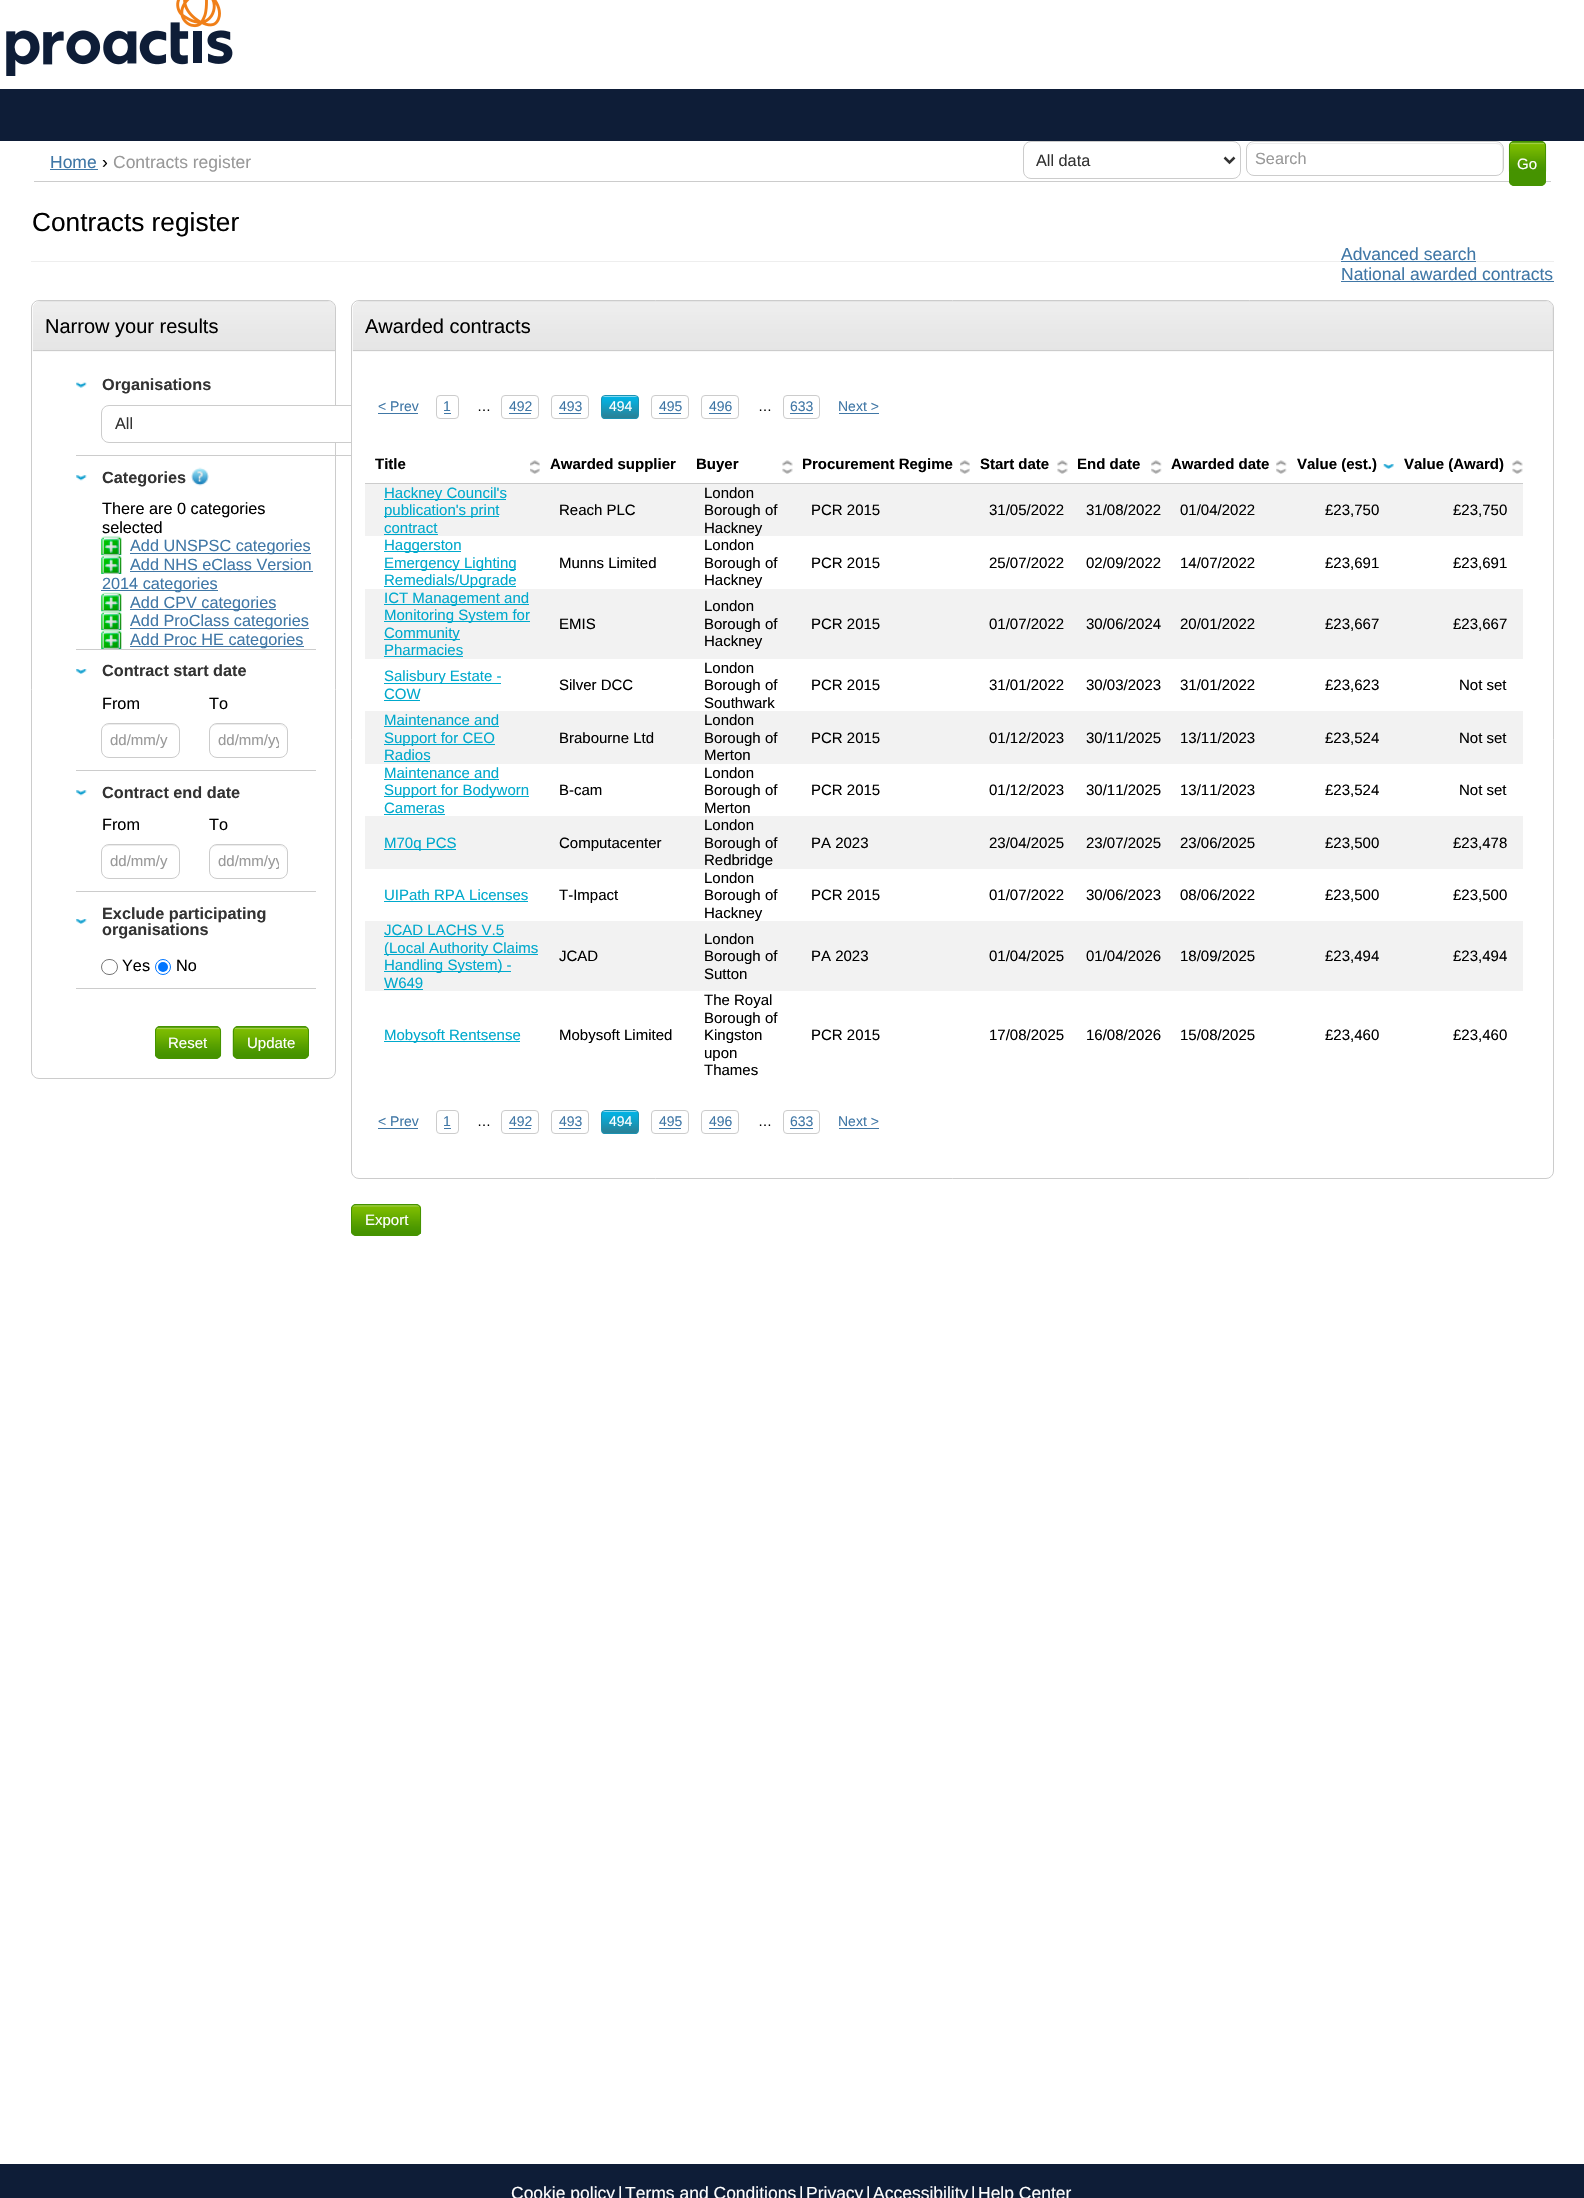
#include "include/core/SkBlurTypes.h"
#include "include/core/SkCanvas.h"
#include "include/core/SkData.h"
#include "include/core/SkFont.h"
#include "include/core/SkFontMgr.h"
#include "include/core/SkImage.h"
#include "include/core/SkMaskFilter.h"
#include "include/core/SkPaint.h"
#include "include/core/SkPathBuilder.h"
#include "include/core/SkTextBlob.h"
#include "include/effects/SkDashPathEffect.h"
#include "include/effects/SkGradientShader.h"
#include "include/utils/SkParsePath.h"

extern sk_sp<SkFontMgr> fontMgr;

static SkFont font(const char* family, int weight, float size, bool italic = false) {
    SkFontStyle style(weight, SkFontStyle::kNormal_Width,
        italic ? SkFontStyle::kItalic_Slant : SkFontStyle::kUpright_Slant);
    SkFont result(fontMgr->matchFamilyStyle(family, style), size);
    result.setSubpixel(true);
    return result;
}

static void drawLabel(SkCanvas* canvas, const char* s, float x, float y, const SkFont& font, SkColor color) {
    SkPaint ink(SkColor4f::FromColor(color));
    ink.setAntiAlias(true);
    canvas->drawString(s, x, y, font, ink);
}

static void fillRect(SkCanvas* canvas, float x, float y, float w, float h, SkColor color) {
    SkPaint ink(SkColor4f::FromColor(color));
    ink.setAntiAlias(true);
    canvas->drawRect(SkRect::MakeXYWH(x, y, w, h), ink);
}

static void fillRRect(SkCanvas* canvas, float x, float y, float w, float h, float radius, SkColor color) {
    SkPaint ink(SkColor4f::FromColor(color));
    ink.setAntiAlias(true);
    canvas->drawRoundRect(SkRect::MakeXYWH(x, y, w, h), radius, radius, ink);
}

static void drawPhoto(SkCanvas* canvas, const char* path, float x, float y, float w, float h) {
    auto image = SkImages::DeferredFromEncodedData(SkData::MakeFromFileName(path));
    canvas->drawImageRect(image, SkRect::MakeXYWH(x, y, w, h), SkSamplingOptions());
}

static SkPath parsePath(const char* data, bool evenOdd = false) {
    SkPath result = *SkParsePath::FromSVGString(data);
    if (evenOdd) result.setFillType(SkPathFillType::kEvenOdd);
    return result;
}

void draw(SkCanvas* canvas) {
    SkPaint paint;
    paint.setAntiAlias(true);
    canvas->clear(0xFFFFFFFF);
    drawPhoto(canvas, "assets/img1.png", 6, 0, 227, 76);
    fillRect(canvas, 0, 89, 1584, 52, 0xFF0E1D37);
    fillRect(canvas, 34, 181, 1517, 1, 0xFFCCCCCC);
    SkFont font1 = font("Liberation Sans", 400, 17.5f);
    drawLabel(canvas, "Home", 50, 168, font1, 0xFF4077A6);
    fillRect(canvas, 50, 169, 48, 1, 0xFF4077A6);
    drawLabel(canvas, "›", 102, 168, font1, 0xFF000000);
    drawLabel(canvas, "Contracts register", 113, 168, font1, 0xFF999999);
    paint.setStroke(true);
    paint.setStrokeWidth(1);
    paint.setColor(0xFFCCCCCC);
    canvas->drawRoundRect(SkRect::MakeXYWH(1023.5f, 141.5f, 217, 37), 7.5f, 7.5f, paint);
    paint.setStrokeWidth(2.5f);
    paint.setColor(0xFF333333);
    canvas->drawPath(parsePath("M1224.5 157.5L1229.5 162.5L1234.5 157.5"), paint);
    SkFont font2 = font("Liberation Sans", 400, 16.25f);
    drawLabel(canvas, "All data", 1036, 166, font2, 0xFF333333);
    paint.setStroke(false);
    paint.setColor(0xFFECECEC);
    canvas->drawPath(parsePath("M1254 144H1496C1500 144 1502 147 1502 150V170C1502 171 1502 172 1501 173C1502 172 1503 171 1503 169V149C1503 146 1500 143 1497 143H1254C1251 143 1248 146 1248 149V150C1248 147 1250 144 1254 144Z"), paint);
    paint.setStroke(true);
    paint.setStrokeWidth(1);
    paint.setColor(0xFFCCCCCC);
    canvas->drawRoundRect(SkRect::MakeXYWH(1246.5f, 141.5f, 257, 34), 7.5f, 7.5f, paint);
    drawLabel(canvas, "Search", 1255, 164, font2, 0xFF999999);
    fillRRect(canvas, 1509, 141, 37, 45, 5, 0xFF459300);
    drawPhoto(canvas, "assets/img2.png", 1508, 142, 39, 30);
    paint.setColor(0xFF459300);
    canvas->drawRoundRect(SkRect::MakeXYWH(1509.5f, 141.5f, 36, 44), 4.5f, 4.5f, paint);
    SkFont font3 = font("Liberation Sans", 400, 15);
    drawLabel(canvas, "Go", 1517, 169, font3, 0xFFFFFFFF);
    fillRect(canvas, 31, 261, 1523, 1, 0xFFEEEEEE);
    SkFont font4 = font("Liberation Sans", 400, 26.25f);
    drawLabel(canvas, "Contracts register", 32, 231, font4, 0xFF000000);
    paint.setColor(0xFFCCCCCC);
    canvas->drawRoundRect(SkRect::MakeXYWH(31.5f, 300.5f, 304, 778), 7.5f, 7.5f, paint);
    paint.setStroke(false);
    paint.setColor(0xFFE5E5E5);
    canvas->drawPath(parsePath("M41 301H327C331.5 301 335 304.5 335 309V351H33V309C33 304.5 36.5 301 41 301Z"), paint);
    drawPhoto(canvas, "assets/img3.png", 32, 302, 303, 50);
    fillRect(canvas, 33, 350, 302, 1, 0xFFCCCCCC);
    SkFont font5 = font("Liberation Sans", 400, 20);
    drawLabel(canvas, "Narrow your results", 45, 333, font5, 0xFF000000);
    fillRect(canvas, 76, 455, 275, 1, 0xFFCCCCCC);
    drawPhoto(canvas, "assets/img4.png", 76, 382, 11, 6);
    SkFont font6 = font("Liberation Sans", 700, 16.25f);
    drawLabel(canvas, "Organisations", 102, 390, font6, 0xFF333333);
    paint.setColor(0xFFFFFFFF);
    canvas->drawRoundRect(SkRect::MakeXYWH(101.5f, 405.5f, 274, 37), 7.5f, 7.5f, paint);
    paint.setStroke(true);
    paint.setColor(0xFFCCCCCC);
    canvas->drawRoundRect(SkRect::MakeXYWH(101.5f, 405.5f, 274, 37), 7.5f, 7.5f, paint);
    drawLabel(canvas, "All", 115, 429, font2, 0xFF333333);
    fillRect(canvas, 76, 649, 240, 1, 0xFFCCCCCC);
    drawPhoto(canvas, "assets/img5.png", 76, 475, 11, 6);
    drawLabel(canvas, "Categories", 102, 483, font6, 0xFF333333);
    drawPhoto(canvas, "assets/img6.png", 191, 467, 18, 19);
    drawLabel(canvas, "There are 0 categories", 102, 514, font2, 0xFF000000);
    drawLabel(canvas, "selected", 102, 533, font2, 0xFF000000);
    drawPhoto(canvas, "assets/img7.png", 101, 536, 21, 20);
    fillRect(canvas, 130, 553, 181, 1, 0xFF4077A6);
    drawLabel(canvas, "Add UNSPSC categories", 130, 551, font2, 0xFF4077A6);
    drawPhoto(canvas, "assets/img8.png", 101, 555, 21, 19);
    drawLabel(canvas, "Add NHS eClass Version", 130, 570, font2, 0xFF4077A6);
    fillRect(canvas, 130, 571, 183, 1, 0xFF4077A6);
    fillRect(canvas, 101, 590, 117, 1, 0xFF4077A6);
    drawLabel(canvas, "2014 categories", 102, 589, font2, 0xFF4077A6);
    drawPhoto(canvas, "assets/img9.png", 101, 592, 21, 20);
    fillRect(canvas, 130, 609, 146, 1, 0xFF4077A6);
    drawLabel(canvas, "Add CPV categories", 130, 608, font2, 0xFF4077A6);
    drawPhoto(canvas, "assets/img10.png", 101, 611, 21, 20);
    fillRect(canvas, 130, 628, 179, 1, 0xFF4077A6);
    drawLabel(canvas, "Add ProClass categories", 130, 626, font2, 0xFF4077A6);
    drawPhoto(canvas, "assets/img11.png", 101, 630, 21, 19);
    fillRect(canvas, 130, 646, 174, 1, 0xFF4077A6);
    drawLabel(canvas, "Add Proc HE categories", 130, 645, font2, 0xFF4077A6);
    fillRect(canvas, 76, 770, 240, 1, 0xFFCCCCCC);
    drawPhoto(canvas, "assets/img12.png", 76, 669, 11, 5);
    drawLabel(canvas, "Contract start date", 102, 676, font6, 0xFF333333);
    drawLabel(canvas, "From", 102, 709, font2, 0xFF000000);
    paint.setStroke(false);
    paint.setColor(0xFFECECEC);
    canvas->drawPath(parsePath("M109 725H172C176 725 179 728 179 731V730C179 727 176 724 173 724H109C107 724 105 725 104 727C105 726 107 725 109 725Z"), paint);
    paint.setStroke(true);
    paint.setColor(0xFFCCCCCC);
    canvas->drawRoundRect(SkRect::MakeXYWH(101.5f, 723.5f, 78, 34), 7.5f, 7.5f, paint);
    drawLabel(canvas, "dd/mm/y", 110, 745, font3, 0xFF999999);
    drawLabel(canvas, "To", 209, 709, font2, 0xFF000000);
    paint.setStroke(false);
    paint.setColor(0xFFECECEC);
    canvas->drawPath(parsePath("M216 725H280C283 725 286 728 286 731C286 722 276 724 269 724H227C220 724 210 722 210 731C210 728 213 725 216 725Z"), paint);
    paint.setStroke(true);
    paint.setColor(0xFFCCCCCC);
    canvas->drawRoundRect(SkRect::MakeXYWH(209.5f, 723.5f, 78, 34), 7.5f, 7.5f, paint);
    canvas->save();
    canvas->clipRect(SkRect::MakeXYWH(218, 731, 61, 18));
    drawLabel(canvas, "dd/mm/yy", 218, 745, font3, 0xFF999999);
    canvas->restore();
    fillRect(canvas, 76, 891, 240, 1, 0xFFCCCCCC);
    drawPhoto(canvas, "assets/img5.png", 76, 790, 11, 6);
    drawLabel(canvas, "Contract end date", 102, 798, font6, 0xFF333333);
    drawLabel(canvas, "From", 102, 830, font2, 0xFF000000);
    paint.setStroke(false);
    paint.setColor(0xFFECECEC);
    canvas->drawPath(parsePath("M109 846H172C176 846 179 849 179 852V851C179 848 176 845 173 845H109C107 845 105 846 104 848C105 847 107 846 109 846Z"), paint);
    paint.setStroke(true);
    paint.setColor(0xFFCCCCCC);
    canvas->drawRoundRect(SkRect::MakeXYWH(101.5f, 844.5f, 78, 34), 7.5f, 7.5f, paint);
    drawLabel(canvas, "dd/mm/y", 110, 866, font3, 0xFF999999);
    drawLabel(canvas, "To", 209, 830, font2, 0xFF000000);
    paint.setStroke(false);
    paint.setColor(0xFFECECEC);
    canvas->drawPath(parsePath("M216 846H280C283 846 286 849 286 852C286 843 276 845 269 845H227C220 845 210 843 210 852C210 849 213 846 216 846Z"), paint);
    paint.setStroke(true);
    paint.setColor(0xFFCCCCCC);
    canvas->drawRoundRect(SkRect::MakeXYWH(209.5f, 844.5f, 78, 34), 7.5f, 7.5f, paint);
    canvas->save();
    canvas->clipRect(SkRect::MakeXYWH(218, 853, 61, 17));
    drawLabel(canvas, "dd/mm/yy", 218, 866, font3, 0xFF999999);
    canvas->restore();
    fillRect(canvas, 76, 988, 240, 1, 0xFFCCCCCC);
    drawPhoto(canvas, "assets/img12.png", 76, 919, 11, 5);
    drawLabel(canvas, "Exclude participating", 102, 919, font6, 0xFF333333);
    drawLabel(canvas, "organisations", 102, 935, font6, 0xFF333333);
    paint.setColor(0xFF767676);
    canvas->drawRoundRect(SkRect::MakeXYWH(101.5f, 959.5f, 16, 15), 7.5f, 7.5f, paint);
    drawLabel(canvas, "Yes", 122, 971, font2, 0xFF000000);
    paint.setColor(0xFF0075FF);
    canvas->drawCircle(163, 967, 7.5f, paint);
    paint.setStroke(false);
    canvas->drawCircle(163, 967, 5, paint);
    drawLabel(canvas, "No", 176, 971, font2, 0xFF000000);
    fillRRect(canvas, 155, 1026, 66, 33, 5, 0xFF459300);
    drawPhoto(canvas, "assets/img13.png", 155, 1027, 67, 30);
    paint.setStroke(true);
    paint.setColor(0xFF459300);
    canvas->drawRoundRect(SkRect::MakeXYWH(155.5f, 1026.5f, 65, 32), 4.5f, 4.5f, paint);
    drawLabel(canvas, "Reset", 168, 1048, font3, 0xFFFFFFFF);
    fillRRect(canvas, 233, 1026, 76, 33, 5, 0xFF459300);
    drawPhoto(canvas, "assets/img14.png", 232, 1027, 77, 30);
    canvas->drawRoundRect(SkRect::MakeXYWH(233.5f, 1026.5f, 75, 32), 4.5f, 4.5f, paint);
    drawLabel(canvas, "Update", 247, 1048, font3, 0xFFFFFFFF);
    drawLabel(canvas, "Advanced search", 1341, 260, font1, 0xFF4077A6);
    fillRect(canvas, 1341, 261, 135, 1, 0xFF4077A6);
    drawLabel(canvas, "National awarded contracts", 1341, 280, font1, 0xFF4077A6);
    fillRect(canvas, 1341, 281, 213, 1, 0xFF4077A6);
    paint.setStroke(false);
    paint.setColor(0xFFFFFFFF);
    canvas->drawRoundRect(SkRect::MakeXYWH(351.5f, 300.5f, 1202, 878), 7.5f, 7.5f, paint);
    paint.setStroke(true);
    paint.setColor(0xFFCCCCCC);
    canvas->drawRoundRect(SkRect::MakeXYWH(351.5f, 300.5f, 1202, 878), 7.5f, 7.5f, paint);
    paint.setStroke(false);
    paint.setColor(0xFFE5E5E5);
    canvas->drawPath(parsePath("M361 301H1545C1549.5 301 1553 304.5 1553 309V351H353V309C353 304.5 356.5 301 361 301Z"), paint);
    drawPhoto(canvas, "assets/img15.png", 352, 302, 1200, 50);
    fillRect(canvas, 353, 350, 1200, 1, 0xFFCCCCCC);
    drawLabel(canvas, "Awarded contracts", 365, 333, font5, 0xFF000000);
    SkFont font7 = font("Liberation Sans", 400, 14);
    drawLabel(canvas, "< Prev", 378, 411, font7, 0xFF4077A6);
    fillRect(canvas, 378, 413, 40, 1, 0xFF4077A6);
    paint.setStroke(true);
    paint.setColor(0xFFCCCCCC);
    canvas->drawRoundRect(SkRect::MakeXYWH(436.5f, 395.5f, 22, 23), 3.5f, 3.5f, paint);
    drawLabel(canvas, "1", 443, 411, font7, 0xFF4077A6);
    fillRect(canvas, 444, 413, 7, 1, 0xFF4077A6);
    drawLabel(canvas, "…", 477, 411, font7, 0xFF000000);
    canvas->drawRoundRect(SkRect::MakeXYWH(501.5f, 395.5f, 37, 23), 3.5f, 3.5f, paint);
    drawLabel(canvas, "492", 509, 411, font7, 0xFF4077A6);
    fillRect(canvas, 509, 413, 22, 1, 0xFF4077A6);
    canvas->drawRoundRect(SkRect::MakeXYWH(551.5f, 395.5f, 37, 23), 3.5f, 3.5f, paint);
    drawLabel(canvas, "493", 559, 411, font7, 0xFF4077A6);
    fillRect(canvas, 559, 413, 22, 1, 0xFF4077A6);
    drawPhoto(canvas, "assets/img16.png", 601, 396, 38, 23);
    paint.setColor(0xFF1B92B2);
    canvas->drawRoundRect(SkRect::MakeXYWH(601.5f, 395.5f, 37, 23), 3.5f, 3.5f, paint);
    drawLabel(canvas, "494", 609, 411, font7, 0xFFFFFFFF);
    paint.setColor(0xFFCCCCCC);
    canvas->drawRoundRect(SkRect::MakeXYWH(651.5f, 395.5f, 37, 23), 3.5f, 3.5f, paint);
    drawLabel(canvas, "495", 659, 411, font7, 0xFF4077A6);
    fillRect(canvas, 659, 413, 22, 1, 0xFF4077A6);
    canvas->drawRoundRect(SkRect::MakeXYWH(701.5f, 395.5f, 37, 23), 3.5f, 3.5f, paint);
    drawLabel(canvas, "496", 709, 411, font7, 0xFF4077A6);
    fillRect(canvas, 709, 413, 22, 1, 0xFF4077A6);
    drawLabel(canvas, "…", 758, 411, font7, 0xFF000000);
    canvas->drawRoundRect(SkRect::MakeXYWH(783.5f, 395.5f, 36, 23), 3.5f, 3.5f, paint);
    drawLabel(canvas, "633", 790, 411, font7, 0xFF4077A6);
    fillRect(canvas, 790, 413, 23, 1, 0xFF4077A6);
    drawLabel(canvas, "Next >", 838, 411, font7, 0xFF4077A6);
    fillRect(canvas, 839, 413, 40, 1, 0xFF4077A6);
    drawPhoto(canvas, "assets/img17.png", 530, 460, 10, 14);
    SkFont font8 = font("Liberation Sans", 700, 15);
    drawLabel(canvas, "Title", 375, 469, font8, 0xFF000000);
    drawLabel(canvas, "Awarded supplier", 550, 469, font8, 0xFF000000);
    drawPhoto(canvas, "assets/img18.png", 782, 460, 11, 14);
    drawLabel(canvas, "Buyer", 696, 469, font8, 0xFF000000);
    drawPhoto(canvas, "assets/img17.png", 960, 460, 10, 14);
    drawLabel(canvas, "Procurement Regime", 802, 469, font8, 0xFF000000);
    drawPhoto(canvas, "assets/img19.png", 1057, 460, 11, 14);
    drawLabel(canvas, "Start date", 980, 469, font8, 0xFF000000);
    drawPhoto(canvas, "assets/img20.png", 1151, 460, 11, 14);
    drawLabel(canvas, "End date", 1077, 469, font8, 0xFF000000);
    drawPhoto(canvas, "assets/img20.png", 1276, 460, 11, 14);
    drawLabel(canvas, "Awarded date", 1171, 469, font8, 0xFF000000);
    drawPhoto(canvas, "assets/img21.png", 1383, 464, 11, 5);
    drawLabel(canvas, "Value (est.)", 1297, 469, font8, 0xFF000000);
    drawPhoto(canvas, "assets/img18.png", 1512, 460, 11, 14);
    fillRect(canvas, 365, 483, 1158, 1, 0xFFCCCCCC);
    drawLabel(canvas, "Value (Award)", 1404, 469, font8, 0xFF000000);
    fillRect(canvas, 365, 484, 1158, 52, 0xFFF2F2F2);
    fillRect(canvas, 384, 499, 122, 1, 0xFF00A9CC);
    drawLabel(canvas, "Hackney Council's", 384, 498, font3, 0xFF00A9CC);
    fillRect(canvas, 384, 516, 115, 1, 0xFF00A9CC);
    drawLabel(canvas, "publication's print", 384, 515, font3, 0xFF00A9CC);
    drawLabel(canvas, "contract", 384, 533, font3, 0xFF00A9CC);
    fillRect(canvas, 384, 534, 54, 1, 0xFF00A9CC);
    drawLabel(canvas, "Reach PLC", 559, 515, font3, 0xFF000000);
    drawLabel(canvas, "London", 704, 498, font3, 0xFF000000);
    drawLabel(canvas, "Borough of", 704, 515, font3, 0xFF000000);
    drawLabel(canvas, "Hackney", 704, 533, font3, 0xFF000000);
    drawLabel(canvas, "PCR 2015", 811, 515, font3, 0xFF000000);
    drawLabel(canvas, "31/05/2022", 989, 515, font3, 0xFF000000);
    drawLabel(canvas, "31/08/2022", 1086, 515, font3, 0xFF000000);
    drawLabel(canvas, "01/04/2022", 1180, 515, font3, 0xFF000000);
    drawLabel(canvas, "£23,750", 1325, 515, font3, 0xFF000000);
    drawLabel(canvas, "£23,750", 1453, 515, font3, 0xFF000000);
    fillRect(canvas, 384, 551, 77, 1, 0xFF00A9CC);
    drawLabel(canvas, "Haggerston", 384, 550, font3, 0xFF00A9CC);
    fillRect(canvas, 384, 569, 132, 1, 0xFF00A9CC);
    drawLabel(canvas, "Emergency Lighting", 384, 568, font3, 0xFF00A9CC);
    fillRect(canvas, 384, 586, 132, 1, 0xFF00A9CC);
    drawLabel(canvas, "Remedials/Upgrade", 384, 585, font3, 0xFF00A9CC);
    drawLabel(canvas, "Munns Limited", 559, 568, font3, 0xFF000000);
    drawLabel(canvas, "London", 704, 550, font3, 0xFF000000);
    drawLabel(canvas, "Borough of", 704, 568, font3, 0xFF000000);
    drawLabel(canvas, "Hackney", 704, 585, font3, 0xFF000000);
    drawLabel(canvas, "PCR 2015", 811, 568, font3, 0xFF000000);
    drawLabel(canvas, "25/07/2022", 989, 568, font3, 0xFF000000);
    drawLabel(canvas, "02/09/2022", 1086, 568, font3, 0xFF000000);
    drawLabel(canvas, "14/07/2022", 1180, 568, font3, 0xFF000000);
    drawLabel(canvas, "£23,691", 1325, 568, font3, 0xFF000000);
    drawLabel(canvas, "£23,691", 1453, 568, font3, 0xFF000000);
    fillRect(canvas, 365, 589, 1158, 70, 0xFFF2F2F2);
    fillRect(canvas, 384, 604, 145, 1, 0xFF00A9CC);
    drawLabel(canvas, "ICT Management and", 384, 603, font3, 0xFF00A9CC);
    fillRect(canvas, 384, 621, 146, 1, 0xFF00A9CC);
    drawLabel(canvas, "Monitoring System for", 384, 620, font3, 0xFF00A9CC);
    fillRect(canvas, 384, 639, 76, 1, 0xFF00A9CC);
    drawLabel(canvas, "Community", 384, 638, font3, 0xFF00A9CC);
    drawLabel(canvas, "Pharmacies", 384, 655, font3, 0xFF00A9CC);
    fillRect(canvas, 384, 656, 79, 1, 0xFF00A9CC);
    drawLabel(canvas, "EMIS", 559, 629, font3, 0xFF000000);
    drawLabel(canvas, "London", 704, 611, font3, 0xFF000000);
    drawLabel(canvas, "Borough of", 704, 629, font3, 0xFF000000);
    drawLabel(canvas, "Hackney", 704, 646, font3, 0xFF000000);
    drawLabel(canvas, "PCR 2015", 811, 629, font3, 0xFF000000);
    drawLabel(canvas, "01/07/2022", 989, 629, font3, 0xFF000000);
    drawLabel(canvas, "30/06/2024", 1086, 629, font3, 0xFF000000);
    drawLabel(canvas, "20/01/2022", 1180, 629, font3, 0xFF000000);
    drawLabel(canvas, "£23,667", 1325, 629, font3, 0xFF000000);
    drawLabel(canvas, "£23,667", 1453, 629, font3, 0xFF000000);
    fillRect(canvas, 384, 683, 117, 1, 0xFF00A9CC);
    drawLabel(canvas, "Salisbury Estate -", 384, 681, font3, 0xFF00A9CC);
    drawLabel(canvas, "COW", 384, 699, font3, 0xFF00A9CC);
    fillRect(canvas, 384, 700, 36, 1, 0xFF00A9CC);
    drawLabel(canvas, "Silver DCC", 559, 690, font3, 0xFF000000);
    drawLabel(canvas, "London", 704, 673, font3, 0xFF000000);
    drawLabel(canvas, "Borough of", 704, 690, font3, 0xFF000000);
    drawLabel(canvas, "Southwark", 704, 708, font3, 0xFF000000);
    drawLabel(canvas, "PCR 2015", 811, 690, font3, 0xFF000000);
    drawLabel(canvas, "31/01/2022", 989, 690, font3, 0xFF000000);
    drawLabel(canvas, "30/03/2023", 1086, 690, font3, 0xFF000000);
    drawLabel(canvas, "31/01/2022", 1180, 690, font3, 0xFF000000);
    drawLabel(canvas, "£23,623", 1325, 690, font3, 0xFF000000);
    drawLabel(canvas, "Not set", 1459, 690, font3, 0xFF000000);
    fillRect(canvas, 365, 711, 1158, 53, 0xFFF2F2F2);
    drawLabel(canvas, "Maintenance and", 384, 725, font3, 0xFF00A9CC);
    fillRect(canvas, 384, 726, 115, 1, 0xFF00A9CC);
    fillRect(canvas, 384, 744, 111, 1, 0xFF00A9CC);
    drawLabel(canvas, "Support for CEO", 384, 743, font3, 0xFF00A9CC);
    drawLabel(canvas, "Radios", 384, 760, font3, 0xFF00A9CC);
    fillRect(canvas, 384, 761, 46, 1, 0xFF00A9CC);
    drawLabel(canvas, "Brabourne Ltd", 559, 743, font3, 0xFF000000);
    drawLabel(canvas, "London", 704, 725, font3, 0xFF000000);
    drawLabel(canvas, "Borough of", 704, 743, font3, 0xFF000000);
    drawLabel(canvas, "Merton", 704, 760, font3, 0xFF000000);
    drawLabel(canvas, "PCR 2015", 811, 743, font3, 0xFF000000);
    drawLabel(canvas, "01/12/2023", 989, 743, font3, 0xFF000000);
    drawLabel(canvas, "30/11/2025", 1086, 743, font3, 0xFF000000);
    drawLabel(canvas, "13/11/2023", 1180, 743, font3, 0xFF000000);
    drawLabel(canvas, "£23,524", 1325, 743, font3, 0xFF000000);
    drawLabel(canvas, "Not set", 1459, 743, font3, 0xFF000000);
    drawLabel(canvas, "Maintenance and", 384, 778, font3, 0xFF00A9CC);
    fillRect(canvas, 384, 779, 115, 1, 0xFF00A9CC);
    fillRect(canvas, 384, 796, 145, 1, 0xFF00A9CC);
    drawLabel(canvas, "Support for Bodyworn", 384, 795, font3, 0xFF00A9CC);
    drawLabel(canvas, "Cameras", 384, 813, font3, 0xFF00A9CC);
    fillRect(canvas, 384, 814, 61, 1, 0xFF00A9CC);
    drawLabel(canvas, "B-cam", 559, 795, font3, 0xFF000000);
    drawLabel(canvas, "London", 704, 778, font3, 0xFF000000);
    drawLabel(canvas, "Borough of", 704, 795, font3, 0xFF000000);
    drawLabel(canvas, "Merton", 704, 813, font3, 0xFF000000);
    drawLabel(canvas, "PCR 2015", 811, 795, font3, 0xFF000000);
    drawLabel(canvas, "01/12/2023", 989, 795, font3, 0xFF000000);
    drawLabel(canvas, "30/11/2025", 1086, 795, font3, 0xFF000000);
    drawLabel(canvas, "13/11/2023", 1180, 795, font3, 0xFF000000);
    drawLabel(canvas, "£23,524", 1325, 795, font3, 0xFF000000);
    drawLabel(canvas, "Not set", 1459, 795, font3, 0xFF000000);
    fillRect(canvas, 365, 816, 1158, 53, 0xFFF2F2F2);
    fillRect(canvas, 384, 849, 72, 1, 0xFF00A9CC);
    drawLabel(canvas, "M70q PCS", 384, 848, font3, 0xFF00A9CC);
    drawLabel(canvas, "Computacenter", 559, 848, font3, 0xFF000000);
    drawLabel(canvas, "London", 704, 830, font3, 0xFF000000);
    drawLabel(canvas, "Borough of", 704, 848, font3, 0xFF000000);
    drawLabel(canvas, "Redbridge", 704, 865, font3, 0xFF000000);
    drawLabel(canvas, "PA 2023", 811, 848, font3, 0xFF000000);
    drawLabel(canvas, "23/04/2025", 989, 848, font3, 0xFF000000);
    drawLabel(canvas, "23/07/2025", 1086, 848, font3, 0xFF000000);
    drawLabel(canvas, "23/06/2025", 1180, 848, font3, 0xFF000000);
    drawLabel(canvas, "£23,500", 1325, 848, font3, 0xFF000000);
    drawLabel(canvas, "£23,478", 1453, 848, font3, 0xFF000000);
    drawLabel(canvas, "UIPath RPA Licenses", 384, 900, font3, 0xFF00A9CC);
    fillRect(canvas, 384, 901, 144, 1, 0xFF00A9CC);
    drawLabel(canvas, "T-Impact", 559, 900, font3, 0xFF000000);
    drawLabel(canvas, "London", 704, 883, font3, 0xFF000000);
    drawLabel(canvas, "Borough of", 704, 900, font3, 0xFF000000);
    fillRect(canvas, 365, 921, 1158, 70, 0xFFF2F2F2);
    drawLabel(canvas, "Hackney", 704, 918, font3, 0xFF000000);
    drawLabel(canvas, "PCR 2015", 811, 900, font3, 0xFF000000);
    drawLabel(canvas, "01/07/2022", 989, 900, font3, 0xFF000000);
    drawLabel(canvas, "30/06/2023", 1086, 900, font3, 0xFF000000);
    drawLabel(canvas, "08/06/2022", 1180, 900, font3, 0xFF000000);
    drawLabel(canvas, "£23,500", 1325, 900, font3, 0xFF000000);
    drawLabel(canvas, "£23,500", 1453, 900, font3, 0xFF000000);
    drawLabel(canvas, "JCAD LACHS V.5", 384, 935, font3, 0xFF00A9CC);
    fillRect(canvas, 384, 936, 120, 1, 0xFF00A9CC);
    fillRect(canvas, 384, 954, 154, 1, 0xFF00A9CC);
    drawLabel(canvas, "(Local Authority Claims", 384, 953, font3, 0xFF00A9CC);
    fillRect(canvas, 384, 971, 127, 1, 0xFF00A9CC);
    drawLabel(canvas, "Handling System) -", 384, 970, font3, 0xFF00A9CC);
    drawLabel(canvas, "W649", 384, 988, font3, 0xFF00A9CC);
    fillRect(canvas, 384, 989, 39, 1, 0xFF00A9CC);
    drawLabel(canvas, "JCAD", 559, 961, font3, 0xFF000000);
    drawLabel(canvas, "London", 704, 944, font3, 0xFF000000);
    drawLabel(canvas, "Borough of", 704, 961, font3, 0xFF000000);
    drawLabel(canvas, "Sutton", 704, 979, font3, 0xFF000000);
    drawLabel(canvas, "PA 2023", 811, 961, font3, 0xFF000000);
    drawLabel(canvas, "01/04/2025", 989, 961, font3, 0xFF000000);
    drawLabel(canvas, "01/04/2026", 1086, 961, font3, 0xFF000000);
    drawLabel(canvas, "18/09/2025", 1180, 961, font3, 0xFF000000);
    drawLabel(canvas, "£23,494", 1325, 961, font3, 0xFF000000);
    drawLabel(canvas, "£23,494", 1453, 961, font3, 0xFF000000);
    fillRect(canvas, 384, 1041, 136, 1, 0xFF00A9CC);
    drawLabel(canvas, "Mobysoft Rentsense", 384, 1040, font3, 0xFF00A9CC);
    drawLabel(canvas, "Mobysoft Limited", 559, 1040, font3, 0xFF000000);
    drawLabel(canvas, "The Royal", 704, 1005, font3, 0xFF000000);
    drawLabel(canvas, "Borough of", 704, 1023, font3, 0xFF000000);
    drawLabel(canvas, "Kingston", 704, 1040, font3, 0xFF000000);
    drawLabel(canvas, "upon", 704, 1058, font3, 0xFF000000);
    drawLabel(canvas, "Thames", 704, 1075, font3, 0xFF000000);
    drawLabel(canvas, "PCR 2015", 811, 1040, font3, 0xFF000000);
    drawLabel(canvas, "17/08/2025", 989, 1040, font3, 0xFF000000);
    drawLabel(canvas, "16/08/2026", 1086, 1040, font3, 0xFF000000);
    drawLabel(canvas, "15/08/2025", 1180, 1040, font3, 0xFF000000);
    drawLabel(canvas, "£23,460", 1325, 1040, font3, 0xFF000000);
    drawLabel(canvas, "£23,460", 1453, 1040, font3, 0xFF000000);
    drawLabel(canvas, "< Prev", 378, 1126, font7, 0xFF4077A6);
    fillRect(canvas, 378, 1128, 40, 1, 0xFF4077A6);
    canvas->drawRoundRect(SkRect::MakeXYWH(436.5f, 1110.5f, 22, 23), 3.5f, 3.5f, paint);
    drawLabel(canvas, "1", 443, 1126, font7, 0xFF4077A6);
    fillRect(canvas, 444, 1128, 7, 1, 0xFF4077A6);
    drawLabel(canvas, "…", 477, 1126, font7, 0xFF000000);
    canvas->drawRoundRect(SkRect::MakeXYWH(501.5f, 1110.5f, 37, 23), 3.5f, 3.5f, paint);
    drawLabel(canvas, "492", 509, 1126, font7, 0xFF4077A6);
    fillRect(canvas, 509, 1128, 22, 1, 0xFF4077A6);
    canvas->drawRoundRect(SkRect::MakeXYWH(551.5f, 1110.5f, 37, 23), 3.5f, 3.5f, paint);
    drawLabel(canvas, "493", 559, 1126, font7, 0xFF4077A6);
    fillRect(canvas, 559, 1128, 22, 1, 0xFF4077A6);
    drawPhoto(canvas, "assets/img22.png", 601, 1111, 38, 23);
    paint.setColor(0xFF1B92B2);
    canvas->drawRoundRect(SkRect::MakeXYWH(601.5f, 1110.5f, 37, 23), 3.5f, 3.5f, paint);
    drawLabel(canvas, "494", 609, 1126, font7, 0xFFFFFFFF);
    paint.setColor(0xFFCCCCCC);
    canvas->drawRoundRect(SkRect::MakeXYWH(651.5f, 1110.5f, 37, 23), 3.5f, 3.5f, paint);
    drawLabel(canvas, "495", 659, 1126, font7, 0xFF4077A6);
    fillRect(canvas, 659, 1128, 22, 1, 0xFF4077A6);
    canvas->drawRoundRect(SkRect::MakeXYWH(701.5f, 1110.5f, 37, 23), 3.5f, 3.5f, paint);
    drawLabel(canvas, "496", 709, 1126, font7, 0xFF4077A6);
    fillRect(canvas, 709, 1128, 22, 1, 0xFF4077A6);
    drawLabel(canvas, "…", 758, 1126, font7, 0xFF000000);
    canvas->drawRoundRect(SkRect::MakeXYWH(783.5f, 1110.5f, 36, 23), 3.5f, 3.5f, paint);
    drawLabel(canvas, "633", 790, 1126, font7, 0xFF4077A6);
    fillRect(canvas, 790, 1128, 23, 1, 0xFF4077A6);
    drawLabel(canvas, "Next >", 838, 1126, font7, 0xFF4077A6);
    fillRect(canvas, 839, 1128, 40, 1, 0xFF4077A6);
    fillRRect(canvas, 351, 1204, 70, 32, 5, 0xFF459300);
    drawPhoto(canvas, "assets/img23.png", 351, 1205, 71, 29);
    paint.setColor(0xFF459300);
    canvas->drawRoundRect(SkRect::MakeXYWH(351.5f, 1204.5f, 69, 31), 4.5f, 4.5f, paint);
    drawLabel(canvas, "Export", 365, 1225, font3, 0xFFFFFFFF);
    fillRect(canvas, 0, 2164, 1584, 34, 0xFF0E1D37);
    drawLabel(canvas, "Cookie policy", 511, 2199, font1, 0xFFFFFFFF);
    drawLabel(canvas, "|", 618, 2199, font1, 0xFFFFFFFF);
    drawLabel(canvas, "Terms and Conditions", 625, 2199, font1, 0xFFFFFFFF);
    drawLabel(canvas, "|", 799, 2199, font1, 0xFFFFFFFF);
    drawLabel(canvas, "Privacy", 806, 2199, font1, 0xFFFFFFFF);
    drawLabel(canvas, "|", 866, 2199, font1, 0xFFFFFFFF);
    drawLabel(canvas, "Accessibility", 873, 2199, font1, 0xFFFFFFFF);
    drawLabel(canvas, "|", 971, 2199, font1, 0xFFFFFFFF);
    drawLabel(canvas, "Help Center", 978, 2199, font1, 0xFFFFFFFF);
}
